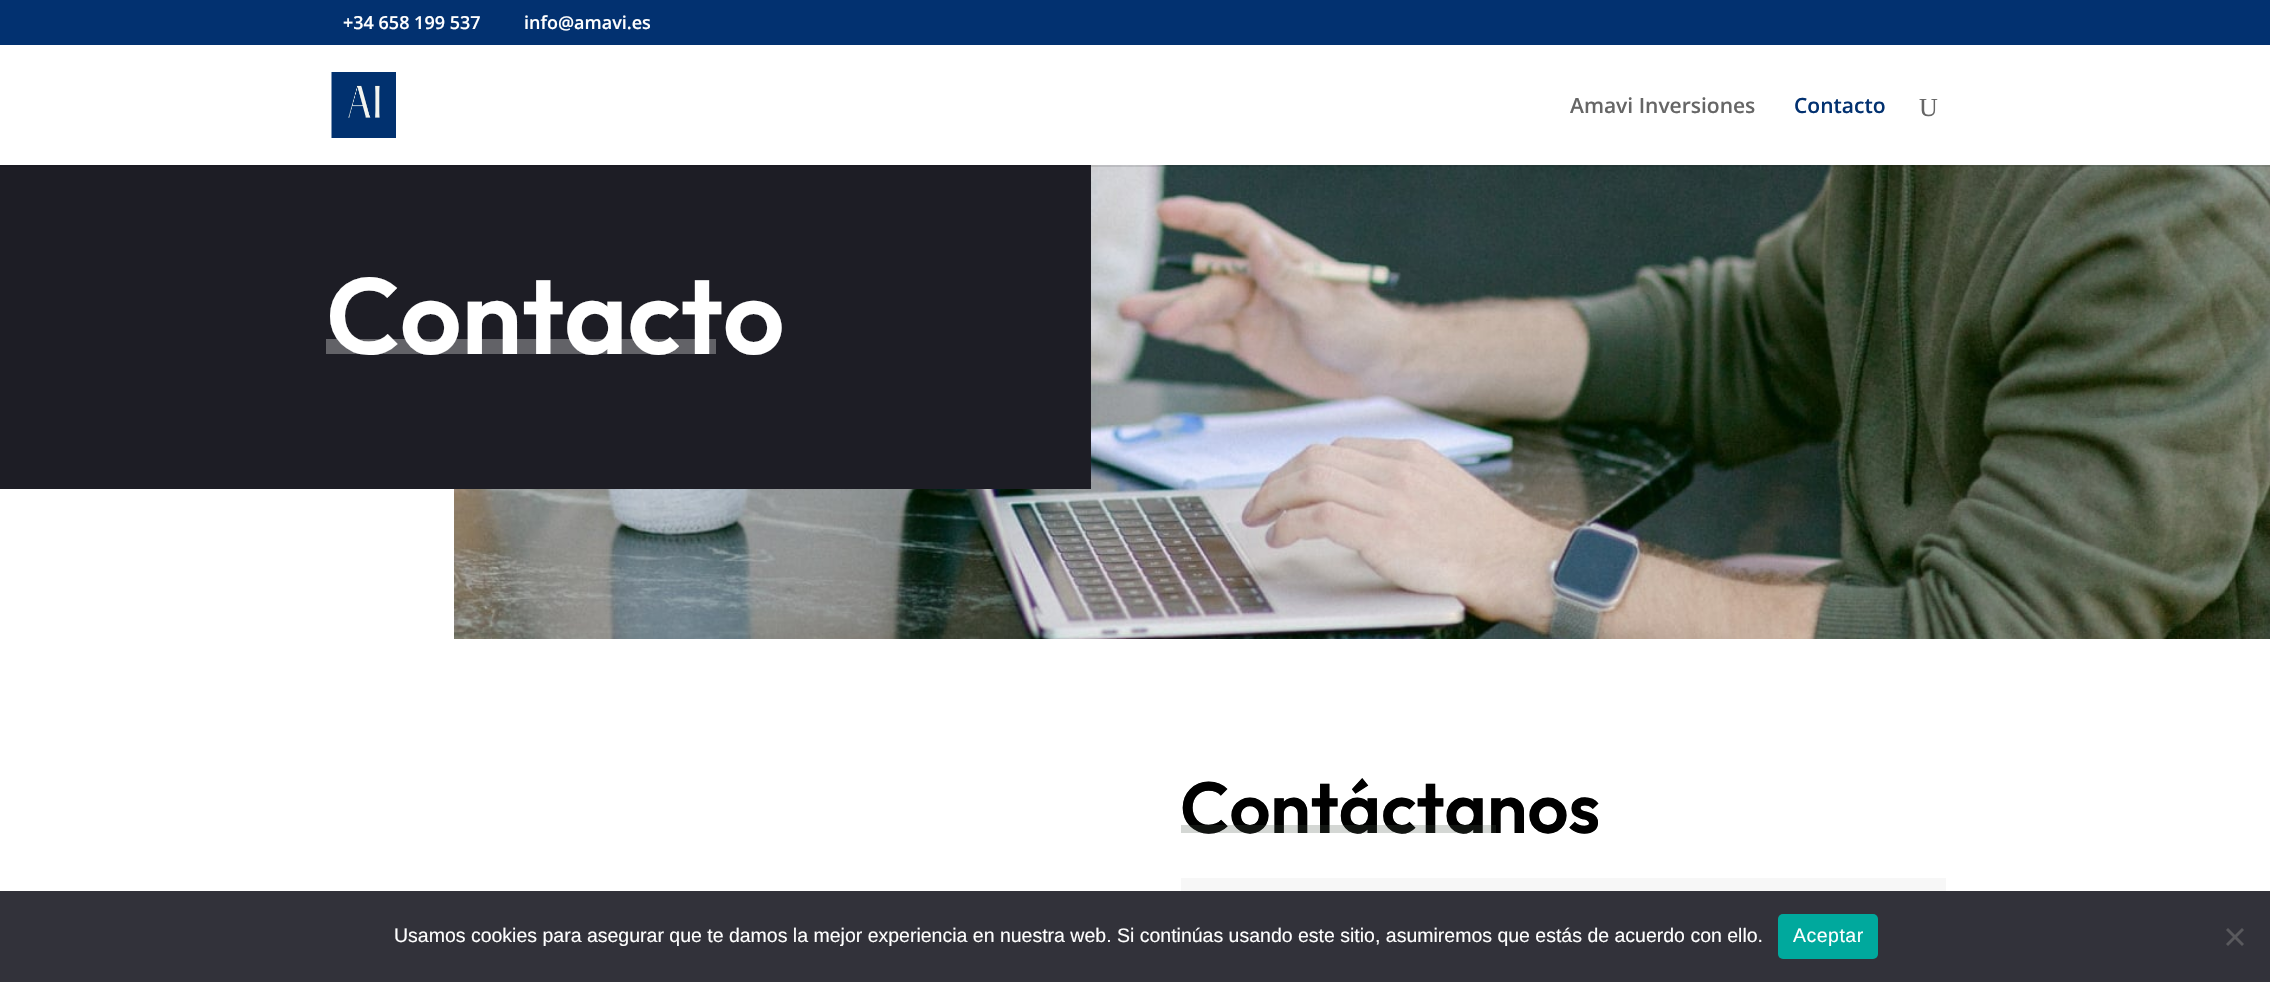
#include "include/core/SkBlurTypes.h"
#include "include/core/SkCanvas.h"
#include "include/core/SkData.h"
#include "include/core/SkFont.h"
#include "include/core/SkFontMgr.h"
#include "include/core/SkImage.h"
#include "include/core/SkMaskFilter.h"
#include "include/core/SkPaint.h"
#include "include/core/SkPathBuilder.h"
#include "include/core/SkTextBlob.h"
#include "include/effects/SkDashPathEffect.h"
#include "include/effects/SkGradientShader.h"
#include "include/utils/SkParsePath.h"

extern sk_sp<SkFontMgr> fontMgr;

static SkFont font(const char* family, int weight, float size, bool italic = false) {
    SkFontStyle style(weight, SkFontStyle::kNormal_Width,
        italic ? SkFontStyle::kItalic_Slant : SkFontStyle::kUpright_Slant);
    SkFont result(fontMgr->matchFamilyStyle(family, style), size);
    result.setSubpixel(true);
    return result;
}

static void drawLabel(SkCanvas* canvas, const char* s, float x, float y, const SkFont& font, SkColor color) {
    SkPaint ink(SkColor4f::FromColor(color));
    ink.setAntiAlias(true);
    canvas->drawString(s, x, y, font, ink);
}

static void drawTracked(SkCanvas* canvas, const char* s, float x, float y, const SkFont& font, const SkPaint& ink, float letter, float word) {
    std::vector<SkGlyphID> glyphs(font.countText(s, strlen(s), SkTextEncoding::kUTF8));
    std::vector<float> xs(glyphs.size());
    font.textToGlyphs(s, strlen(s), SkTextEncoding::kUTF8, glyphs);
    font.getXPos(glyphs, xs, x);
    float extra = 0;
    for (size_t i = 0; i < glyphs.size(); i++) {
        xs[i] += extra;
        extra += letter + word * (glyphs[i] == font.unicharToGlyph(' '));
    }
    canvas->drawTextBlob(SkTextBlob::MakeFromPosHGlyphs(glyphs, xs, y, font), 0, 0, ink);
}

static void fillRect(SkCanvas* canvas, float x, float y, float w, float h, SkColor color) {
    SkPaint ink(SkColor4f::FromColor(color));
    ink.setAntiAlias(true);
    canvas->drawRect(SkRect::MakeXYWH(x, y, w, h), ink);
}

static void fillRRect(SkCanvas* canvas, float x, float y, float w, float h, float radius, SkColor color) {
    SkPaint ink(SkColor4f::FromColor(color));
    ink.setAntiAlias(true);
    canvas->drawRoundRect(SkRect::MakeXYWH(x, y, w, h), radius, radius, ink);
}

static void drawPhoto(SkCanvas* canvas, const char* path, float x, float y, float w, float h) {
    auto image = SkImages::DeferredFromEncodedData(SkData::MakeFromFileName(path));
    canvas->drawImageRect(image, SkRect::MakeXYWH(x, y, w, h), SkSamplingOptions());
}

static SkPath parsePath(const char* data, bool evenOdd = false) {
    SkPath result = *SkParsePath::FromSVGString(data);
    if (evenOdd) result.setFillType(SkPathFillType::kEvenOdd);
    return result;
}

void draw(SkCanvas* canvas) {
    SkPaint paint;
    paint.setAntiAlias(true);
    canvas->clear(0xFFFFFFFF);
    fillRect(canvas, 0, 0, 2270, 45, 0xFF023170);
    SkFont font1 = font("Open Sans", 600, 18);
    drawLabel(canvas, "+34 658 199 537", 343, 29, font1, 0xFFFFFFFF);
    drawLabel(canvas, "info@amavi.es", 524, 29, font1, 0xFFFFFFFF);
    drawPhoto(canvas, "assets/img2.png", 454, 165, 1816, 474);
    fillRect(canvas, 0, 165, 1091, 324, 0xFF1D1D25);
    fillRect(canvas, 0, 165, 2270, 2, 0x1A000000);
    drawPhoto(canvas, "assets/img1.png", 331, 72, 65, 66);
    SkFont font2 = font("Open Sans", 600, 21);
    drawLabel(canvas, "Amavi Inversiones", 1570, 113, font2, 0xFF666666);
    drawLabel(canvas, "Contacto", 1794, 113, font2, 0xFF023170);
    SkFont font3 = font("Liberation Serif", 400, 26);
    drawLabel(canvas, "U", 1919, 116, font3, 0xFF666666);
    SkFont font4 = font("Outfit", 600, 108);
    drawLabel(canvas, "Contacto", 326, 354, font4, 0xFFFFFFFF);
    fillRect(canvas, 326, 339, 390, 15, 0x4DFFFFFF);
    SkFont font5 = font("Outfit", 600, 72);
    drawLabel(canvas, "Contáctanos", 1180, 833, font5, 0xFF000000);
    fillRect(canvas, 1181, 825, 315, 8, 0x3D4C594C);
    fillRect(canvas, 1181, 878, 765, 13, 0xFFF7F7F7);
    fillRect(canvas, 0, 891, 2270, 91, 0xFF32323A);
    SkFont font6 = font("Liberation Sans", 400, 19.5f);
    drawLabel(canvas, "Usamos cookies para asegurar que te damos la mejor experiencia en nuestra web. Si continúas usando este sitio, asumiremos que estás de acuerdo con ello.", 394, 942, font6, 0xFFFFFFFF);
    fillRRect(canvas, 1778, 914, 100, 45, 5, 0xFF00A99D);
    paint.setColor(0xFFFFFFFF);
    drawTracked(canvas, "Aceptar", 1793, 942, font6, paint, 0.5f, 0);
    paint.setColor(0xFF59595D);
    canvas->drawPath(parsePath("M2242 928L2244 930L2228 946L2226 944Z"), paint);
    canvas->drawPath(parsePath("M2226 930L2228 928L2244 944L2242 946Z"), paint);
}
